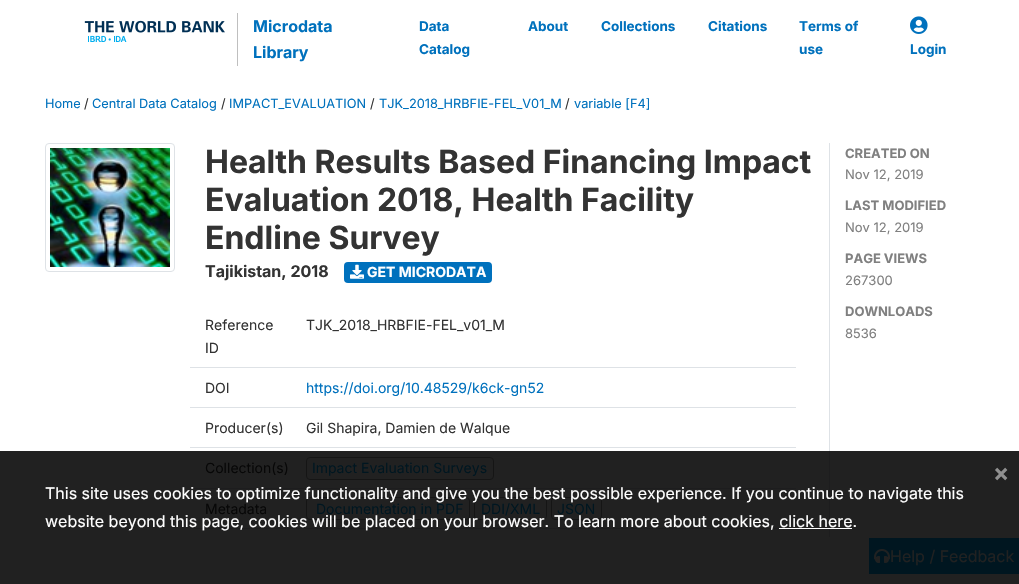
#include "include/core/SkBlurTypes.h"
#include "include/core/SkCanvas.h"
#include "include/core/SkData.h"
#include "include/core/SkFont.h"
#include "include/core/SkFontMgr.h"
#include "include/core/SkImage.h"
#include "include/core/SkMaskFilter.h"
#include "include/core/SkPaint.h"
#include "include/core/SkPathBuilder.h"
#include "include/core/SkTextBlob.h"
#include "include/effects/SkDashPathEffect.h"
#include "include/effects/SkGradientShader.h"
#include "include/utils/SkParsePath.h"

extern sk_sp<SkFontMgr> fontMgr;

static SkFont font(const char* family, int weight, float size, bool italic = false) {
    SkFontStyle style(weight, SkFontStyle::kNormal_Width,
        italic ? SkFontStyle::kItalic_Slant : SkFontStyle::kUpright_Slant);
    SkFont result(fontMgr->matchFamilyStyle(family, style), size);
    result.setSubpixel(true);
    return result;
}

static void drawLabel(SkCanvas* canvas, const char* s, float x, float y, const SkFont& font, SkColor color) {
    SkPaint ink(SkColor4f::FromColor(color));
    ink.setAntiAlias(true);
    canvas->drawString(s, x, y, font, ink);
}

static void fillRect(SkCanvas* canvas, float x, float y, float w, float h, SkColor color) {
    SkPaint ink(SkColor4f::FromColor(color));
    ink.setAntiAlias(true);
    canvas->drawRect(SkRect::MakeXYWH(x, y, w, h), ink);
}

static void fillRRect(SkCanvas* canvas, float x, float y, float w, float h, float radius, SkColor color) {
    SkPaint ink(SkColor4f::FromColor(color));
    ink.setAntiAlias(true);
    canvas->drawRoundRect(SkRect::MakeXYWH(x, y, w, h), radius, radius, ink);
}

static void drawPhoto(SkCanvas* canvas, const char* path, float x, float y, float w, float h) {
    auto image = SkImages::DeferredFromEncodedData(SkData::MakeFromFileName(path));
    canvas->drawImageRect(image, SkRect::MakeXYWH(x, y, w, h), SkSamplingOptions());
}

void draw(SkCanvas* canvas) {
    SkPaint paint;
    paint.setAntiAlias(true);
    canvas->clear(0xFFFFFFFF);
    fillRect(canvas, 0, 451, 1019, 133, 0xFF212121);
    drawPhoto(canvas, "assets/img1.png", 84, 20, 141, 22);
    fillRect(canvas, 237, 13, 1, 53, 0xFFBFBFBF);
    SkFont font1 = font("Inter", 700, 16);
    drawLabel(canvas, "Microdata", 253, 32, font1, 0xFF0071BD);
    drawLabel(canvas, "Library", 253, 58, font1, 0xFF0071BD);
    SkFont font2 = font("Inter", 700, 13.5f);
    drawLabel(canvas, "Data", 419, 31, font2, 0xFF0071BD);
    drawLabel(canvas, "Catalog", 419, 54, font2, 0xFF0071BD);
    drawLabel(canvas, "About", 528, 31, font2, 0xFF0071BD);
    drawLabel(canvas, "Collections", 601, 31, font2, 0xFF0071BD);
    drawLabel(canvas, "Citations", 708, 31, font2, 0xFF0071BD);
    drawLabel(canvas, "Terms of", 799, 31, font2, 0xFF0071BD);
    drawLabel(canvas, "use", 799, 54, font2, 0xFF0071BD);
    drawPhoto(canvas, "assets/img2.png", 910, 16, 18, 18);
    drawLabel(canvas, "Login", 910, 54, font2, 0xFF0071BD);
    SkFont font3 = font("Inter", 400, 12.75f);
    drawLabel(canvas, "Home", 45, 108, font3, 0xFF0071BD);
    drawLabel(canvas, "/", 84, 108, font3, 0xFF333333);
    drawLabel(canvas, "Central Data Catalog", 92, 108, font3, 0xFF0071BD);
    drawLabel(canvas, "/", 221, 108, font3, 0xFF333333);
    drawLabel(canvas, "IMPACT_EVALUATION", 229, 108, font3, 0xFF0071BD);
    drawLabel(canvas, "/", 370, 108, font3, 0xFF333333);
    drawLabel(canvas, "TJK_2018_HRBFIE-FEL_V01_M", 379, 108, font3, 0xFF0071BD);
    drawLabel(canvas, "/", 565, 108, font3, 0xFF333333);
    drawLabel(canvas, "variable [F4]", 574, 108, font3, 0xFF0071BD);
    paint.setStroke(true);
    paint.setStrokeWidth(1);
    paint.setColor(0xFFDEE2E6);
    canvas->drawRoundRect(SkRect::MakeXYWH(45.5f, 143.5f, 129, 128), 3.5f, 3.5f, paint);
    drawPhoto(canvas, "assets/img3.png", 50, 148, 120, 119);
    SkFont font4 = font("Inter", 700, 32);
    drawLabel(canvas, "Health Results Based Financing Impact", 205, 173, font4, 0xFF333333);
    drawLabel(canvas, "Evaluation 2018, Health Facility", 205, 211, font4, 0xFF333333);
    drawLabel(canvas, "Endline Survey", 205, 249, font4, 0xFF333333);
    drawLabel(canvas, "Tajikistan, 2018", 205, 277, font1, 0xFF333333);
    fillRRect(canvas, 344, 262, 148, 21, 4, 0xFF0071BD);
    drawPhoto(canvas, "assets/img4.png", 350, 264, 14, 15);
    SkFont font5 = font("Inter", 700, 14);
    drawLabel(canvas, "GET MICRODATA", 367, 277, font5, 0xFFFFFFFF);
    fillRect(canvas, 190, 367, 606, 1, 0xFFDEE2E6);
    SkFont font6 = font("Inter", 400, 14);
    drawLabel(canvas, "Reference", 205, 330, font6, 0xFF333333);
    drawLabel(canvas, "ID", 205, 353, font6, 0xFF333333);
    drawLabel(canvas, "TJK_2018_HRBFIE-FEL_v01_M", 306, 330, font6, 0xFF333333);
    fillRect(canvas, 190, 407, 606, 1, 0xFFDEE2E6);
    drawLabel(canvas, "DOI", 205, 393, font6, 0xFF333333);
    drawLabel(canvas, "https://doi.org/10.48529/k6ck-gn52", 306, 393, font6, 0xFF0071BD);
    fillRect(canvas, 190, 447, 606, 1, 0xFFDEE2E6);
    drawLabel(canvas, "Producer(s)", 205, 433, font6, 0xFF333333);
    drawLabel(canvas, "Gil Shapira, Damien de Walque", 306, 433, font6, 0xFF333333);
    fillRect(canvas, 190, 488, 606, 1, 0xFF1D1D1E);
    drawLabel(canvas, "Collection(s)", 205, 473, font6, 0xFF070707);
    paint.setColor(0xFF151515);
    canvas->drawRoundRect(SkRect::MakeXYWH(306.5f, 457.5f, 187, 22), 3.5f, 3.5f, paint);
    drawLabel(canvas, "Impact Evaluation Surveys", 312, 473, font6, 0xFF001620);
    fillRect(canvas, 190, 528, 589, 1, 0xFF1D1D1E);
    drawLabel(canvas, "Metadata", 205, 514, font6, 0xFF070707);
    canvas->drawRoundRect(SkRect::MakeXYWH(306.5f, 497.5f, 163, 22), 3.5f, 3.5f, paint);
    drawLabel(canvas, "Documentation in PDF", 316, 514, font6, 0xFF001620);
    canvas->drawRoundRect(SkRect::MakeXYWH(474.5f, 497.5f, 72, 22), 3.5f, 3.5f, paint);
    drawLabel(canvas, "DDI/XML", 481, 514, font6, 0xFF001620);
    canvas->drawRoundRect(SkRect::MakeXYWH(551.5f, 497.5f, 50, 22), 3.5f, 3.5f, paint);
    drawLabel(canvas, "JSON", 557, 514, font6, 0xFF001620);
    fillRect(canvas, 829, 143, 1, 308, 0xFFDEE2E6);
    fillRect(canvas, 829, 451, 1, 86, 0xFF1D1D1E);
    SkFont font7 = font("Inter", 700, 13);
    drawLabel(canvas, "CREATED ON", 845, 158, font7, 0xFF808080);
    SkFont font8 = font("Inter", 400, 13);
    drawLabel(canvas, "Nov 12, 2019", 845, 179, font8, 0xFF808080);
    drawLabel(canvas, "LAST MODIFIED", 845, 210, font7, 0xFF808080);
    drawLabel(canvas, "Nov 12, 2019", 845, 232, font8, 0xFF808080);
    drawLabel(canvas, "PAGE VIEWS", 845, 263, font7, 0xFF808080);
    drawLabel(canvas, "267300", 845, 285, font8, 0xFF808080);
    drawLabel(canvas, "DOWNLOADS", 845, 316, font7, 0xFF808080);
    drawLabel(canvas, "8536", 845, 338, font8, 0xFF808080);
    SkFont font9 = font("Inter", 700, 24);
    drawLabel(canvas, "×", 993, 481, font9, 0xFF909090);
    SkFont font10 = font("Inter", 400, 16);
    drawLabel(canvas, "This site uses cookies to optimize functionality and give you the best possible experience. If you continue to navigate this", 45, 499, font10, 0xFFFFFFFF);
    drawLabel(canvas, "website beyond this page, cookies will be placed on your browser. To learn more about cookies, click here.", 45, 527, font10, 0xFFFFFFFF);
    fillRect(canvas, 779, 528, 73, 1, 0xFFFFFFFF);
    fillRect(canvas, 869, 538, 150, 36, 0xFF001620);
    drawPhoto(canvas, "assets/img5.png", 874, 549, 16, 14);
    drawLabel(canvas, "Help / Feedback", 890, 562, font10, 0xFF212121);
}
